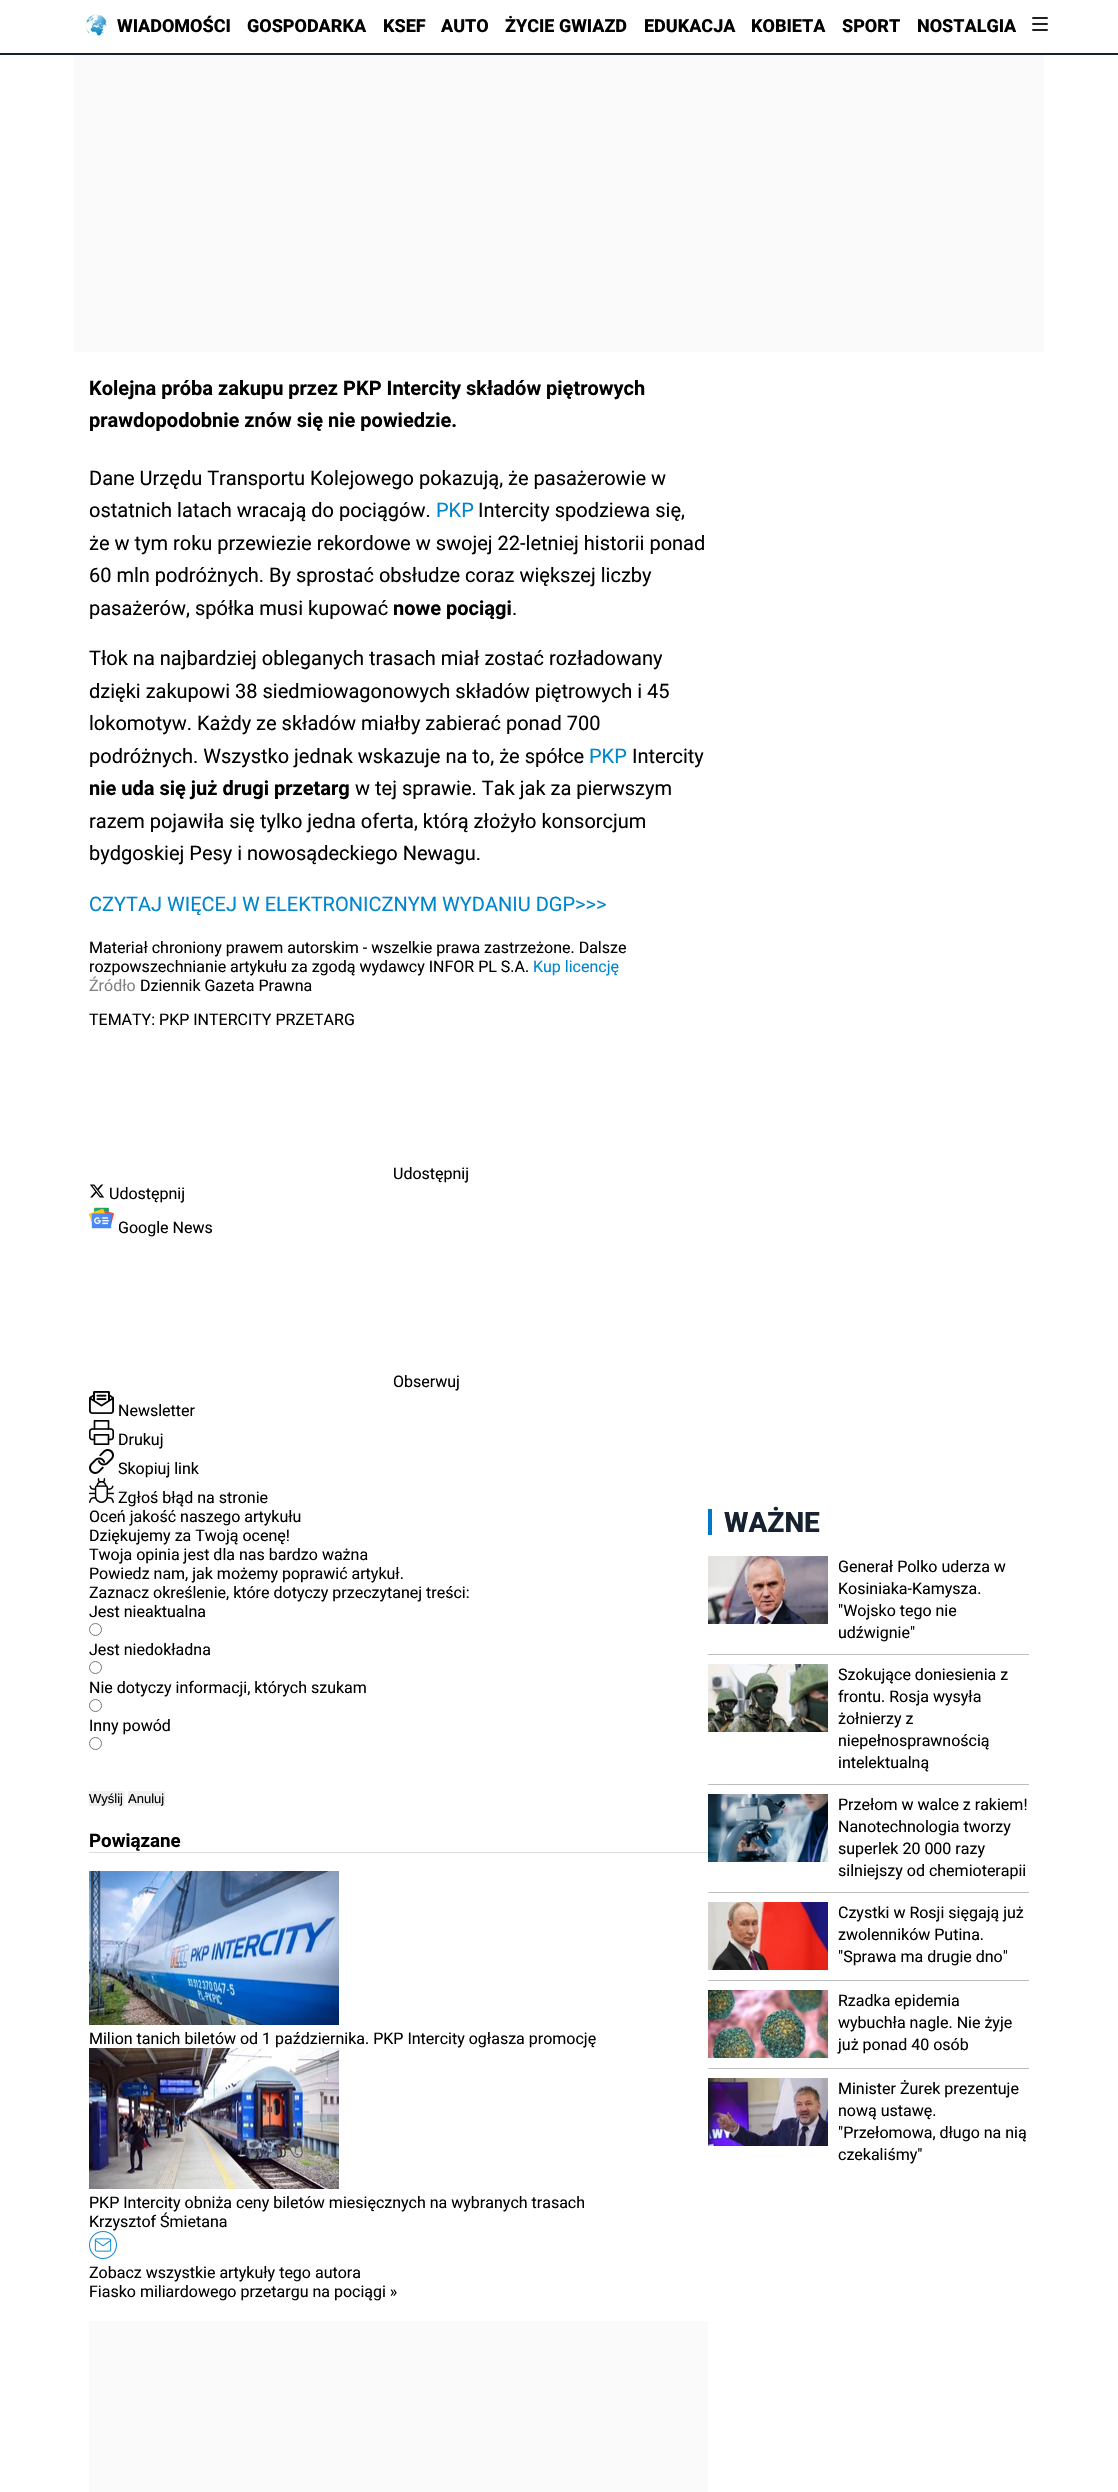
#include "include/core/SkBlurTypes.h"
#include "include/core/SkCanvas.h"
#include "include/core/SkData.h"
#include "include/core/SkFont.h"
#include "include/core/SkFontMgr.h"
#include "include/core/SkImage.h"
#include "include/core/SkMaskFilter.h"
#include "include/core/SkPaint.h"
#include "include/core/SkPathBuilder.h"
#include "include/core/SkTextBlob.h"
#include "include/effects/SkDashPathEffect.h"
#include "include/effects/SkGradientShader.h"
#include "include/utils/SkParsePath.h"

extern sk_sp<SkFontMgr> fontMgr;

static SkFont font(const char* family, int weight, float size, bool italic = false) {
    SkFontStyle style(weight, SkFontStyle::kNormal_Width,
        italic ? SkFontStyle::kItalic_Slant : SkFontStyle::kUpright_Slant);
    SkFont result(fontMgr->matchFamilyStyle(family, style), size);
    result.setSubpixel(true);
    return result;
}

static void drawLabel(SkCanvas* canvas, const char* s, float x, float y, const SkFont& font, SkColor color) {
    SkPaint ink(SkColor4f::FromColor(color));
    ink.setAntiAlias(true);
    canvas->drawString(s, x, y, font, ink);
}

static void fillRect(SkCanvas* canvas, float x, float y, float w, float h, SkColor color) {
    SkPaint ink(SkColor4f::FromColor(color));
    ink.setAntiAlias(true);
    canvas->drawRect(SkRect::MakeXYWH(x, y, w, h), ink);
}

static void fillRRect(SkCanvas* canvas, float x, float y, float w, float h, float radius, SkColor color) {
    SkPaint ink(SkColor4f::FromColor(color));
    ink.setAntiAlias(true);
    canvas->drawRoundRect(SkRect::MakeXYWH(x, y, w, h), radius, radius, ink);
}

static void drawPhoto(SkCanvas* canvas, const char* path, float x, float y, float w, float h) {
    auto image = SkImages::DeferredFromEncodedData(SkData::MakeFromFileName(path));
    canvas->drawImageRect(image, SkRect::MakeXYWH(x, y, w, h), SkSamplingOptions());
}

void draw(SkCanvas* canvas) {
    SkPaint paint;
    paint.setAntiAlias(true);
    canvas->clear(0xFFFFFFFF);
    drawPhoto(canvas, "assets/img1.png", 86, 14, 21, 23);
    SkFont font1 = font("Roboto", 800, 18);
    drawLabel(canvas, "WIADOMOŚCI", 117, 32, font1, 0xFF000000);
    drawLabel(canvas, "GOSPODARKA", 247, 32, font1, 0xFF000000);
    drawLabel(canvas, "KSEF", 383, 32, font1, 0xFF000000);
    drawLabel(canvas, "AUTO", 441, 32, font1, 0xFF000000);
    drawLabel(canvas, "ŻYCIE GWIAZD", 505, 32, font1, 0xFF000000);
    drawLabel(canvas, "EDUKACJA", 644, 32, font1, 0xFF000000);
    drawLabel(canvas, "KOBIETA", 751, 32, font1, 0xFF000000);
    drawLabel(canvas, "SPORT", 842, 32, font1, 0xFF000000);
    drawLabel(canvas, "NOSTALGIA", 917, 32, font1, 0xFF000000);
    fillRRect(canvas, 1032, 17, 16, 2, 1, 0xFF231F20);
    fillRRect(canvas, 1032, 23, 16, 2, 1, 0xFF231F20);
    fillRRect(canvas, 1032, 29, 16, 2, 1, 0xFF231F20);
    fillRect(canvas, 0, 53, 1118, 2, 0xFF16222F);
    fillRect(canvas, 74, 55, 970, 297, 0xFFFBFAFA);
    SkFont font2 = font("Roboto", 700, 20);
    drawLabel(canvas, "Kolejna próba zakupu przez PKP Intercity składów piętrowych", 89, 395, font2, 0xFF000000);
    drawLabel(canvas, "prawdopodobnie znów się nie powiedzie.", 89, 427, font2, 0xFF000000);
    SkFont font3 = font("Roboto", 400, 20);
    drawLabel(canvas, "Dane Urzędu Transportu Kolejowego pokazują, że pasażerowie w", 89, 485, font3, 0xFF000000);
    drawLabel(canvas, "ostatnich latach wracają do pociągów.", 89, 517, font3, 0xFF000000);
    drawLabel(canvas, "PKP", 436, 517, font3, 0xFF0086CD);
    drawLabel(canvas, "Intercity spodziewa się,", 478, 517, font3, 0xFF000000);
    drawLabel(canvas, "że w tym roku przewiezie rekordowe w swojej 22-letniej historii ponad", 89, 550, font3, 0xFF000000);
    drawLabel(canvas, "60 mln podróżnych. By sprostać obsłudze coraz większej liczby", 89, 582, font3, 0xFF000000);
    drawLabel(canvas, "pasażerów, spółka musi kupować", 89, 615, font3, 0xFF000000);
    drawLabel(canvas, "nowe pociągi", 393, 615, font2, 0xFF000000);
    drawLabel(canvas, ".", 512, 615, font3, 0xFF000000);
    drawLabel(canvas, "Tłok na najbardziej obleganych trasach miał zostać rozładowany", 89, 665, font3, 0xFF000000);
    drawLabel(canvas, "dzięki zakupowi 38 siedmiowagonowych składów piętrowych i 45", 89, 698, font3, 0xFF000000);
    drawLabel(canvas, "lokomotyw. Każdy ze składów miałby zabierać ponad 700", 89, 730, font3, 0xFF000000);
    drawLabel(canvas, "podróżnych. Wszystko jednak wskazuje na to, że spółce", 89, 763, font3, 0xFF000000);
    drawLabel(canvas, "PKP", 589, 763, font3, 0xFF0086CD);
    drawLabel(canvas, "Intercity", 632, 763, font3, 0xFF000000);
    drawLabel(canvas, "nie uda się już drugi przetarg", 89, 795, font2, 0xFF000000);
    drawLabel(canvas, "w tej sprawie. Tak jak za pierwszym", 355, 795, font3, 0xFF000000);
    drawLabel(canvas, "razem pojawiła się tylko jedna oferta, którą złożyło konsorcjum", 89, 828, font3, 0xFF000000);
    drawLabel(canvas, "bydgoskiej Pesy i nowosądeckiego Newagu.", 89, 860, font3, 0xFF000000);
    drawLabel(canvas, "CZYTAJ WIĘCEJ W ELEKTRONICZNYM WYDANIU DGP>>>", 89, 911, font3, 0xFF0086CD);
    SkFont font4 = font("Roboto", 400, 16);
    drawLabel(canvas, "Materiał chroniony prawem autorskim - wszelkie prawa zastrzeżone. Dalsze", 89, 953, font4, 0xFF000000);
    drawLabel(canvas, "rozpowszechnianie artykułu za zgodą wydawcy INFOR PL S.A.", 89, 972, font4, 0xFF000000);
    drawLabel(canvas, "Kup licencję", 533, 972, font4, 0xFF0086CD);
    drawLabel(canvas, "Źródło", 89, 991, font4, 0xFF818181);
    drawLabel(canvas, "Dziennik Gazeta Prawna", 140, 991, font4, 0xFF000000);
    drawLabel(canvas, "TEMATY: PKP INTERCITY PRZETARG", 89, 1025, font4, 0xFF000000);
    drawLabel(canvas, "Udostępnij", 393, 1179, font4, 0xFF000000);
    drawPhoto(canvas, "assets/img2.png", 90, 1184, 15, 14);
    drawLabel(canvas, "Udostępnij", 109, 1199, font4, 0xFF000000);
    drawPhoto(canvas, "assets/img3.png", 89, 1207, 25, 22);
    drawLabel(canvas, "Google News", 118, 1233, font4, 0xFF000000);
    drawLabel(canvas, "Obserwuj", 393, 1387, font4, 0xFF000000);
    drawPhoto(canvas, "assets/img4.png", 89, 1391, 25, 23);
    drawLabel(canvas, "Newsletter", 118, 1416, font4, 0xFF000000);
    drawPhoto(canvas, "assets/img5.png", 89, 1420, 25, 25);
    drawLabel(canvas, "Drukuj", 118, 1445, font4, 0xFF000000);
    drawPhoto(canvas, "assets/img6.png", 89, 1449, 25, 25);
    drawLabel(canvas, "Skopiuj link", 118, 1474, font4, 0xFF000000);
    drawPhoto(canvas, "assets/img7.png", 89, 1478, 25, 25);
    drawLabel(canvas, "Zgłoś błąd na stronie", 118, 1503, font4, 0xFF000000);
    drawLabel(canvas, "Oceń jakość naszego artykułu", 89, 1522, font4, 0xFF000000);
    drawLabel(canvas, "Dziękujemy za Twoją ocenę!", 89, 1541, font4, 0xFF000000);
    drawLabel(canvas, "Twoja opinia jest dla nas bardzo ważna", 89, 1560, font4, 0xFF000000);
    drawLabel(canvas, "Powiedz nam, jak możemy poprawić artykuł.", 89, 1579, font4, 0xFF000000);
    drawLabel(canvas, "Zaznacz określenie, które dotyczy przeczytanej treści:", 89, 1598, font4, 0xFF000000);
    drawLabel(canvas, "Jest nieaktualna", 89, 1617, font4, 0xFF000000);
    paint.setStroke(true);
    paint.setStrokeWidth(1);
    paint.setColor(0xFF767676);
    canvas->drawCircle(95.5f, 1629.5f, 6, paint);
    drawLabel(canvas, "Jest niedokładna", 89, 1655, font4, 0xFF000000);
    canvas->drawCircle(95.5f, 1667.5f, 6, paint);
    drawLabel(canvas, "Nie dotyczy informacji, których szukam", 89, 1693, font4, 0xFF000000);
    canvas->drawCircle(95.5f, 1705.5f, 6, paint);
    drawLabel(canvas, "Inny powód", 89, 1731, font4, 0xFF000000);
    canvas->drawCircle(95.5f, 1743.5f, 6, paint);
    fillRect(canvas, 89, 1791, 35, 15, 0xFFEFEFEF);
    SkFont font5 = font("Liberation Sans", 400, 13);
    drawLabel(canvas, "Wyślij", 89, 1803, font5, 0xFF000000);
    fillRect(canvas, 128, 1791, 37, 15, 0xFFEFEFEF);
    drawLabel(canvas, "Anuluj", 128, 1803, font5, 0xFF000000);
    fillRect(canvas, 89, 1852, 619, 1, 0xFFDCDCDC);
    SkFont font6 = font("Roboto", 700, 18.75f);
    drawLabel(canvas, "Powiązane", 89, 1847, font6, 0xFF000000);
    drawPhoto(canvas, "assets/img8.png", 89, 1871, 250, 154);
    drawLabel(canvas, "Milion tanich biletów od 1 października. PKP Intercity ogłasza promocję", 89, 2044, font4, 0xFF000000);
    drawPhoto(canvas, "assets/img9.png", 89, 2048, 250, 141);
    drawLabel(canvas, "PKP Intercity obniża ceny biletów miesięcznych na wybranych trasach", 89, 2208, font4, 0xFF000000);
    drawLabel(canvas, "Krzysztof Śmietana", 89, 2227, font4, 0xFF000000);
    drawPhoto(canvas, "assets/img10.png", 89, 2231, 28, 28);
    drawLabel(canvas, "Zobacz wszystkie artykuły tego autora", 89, 2278, font4, 0xFF000000);
    drawLabel(canvas, "Fiasko miliardowego przetargu na pociągi »", 89, 2297, font4, 0xFF000000);
    fillRect(canvas, 89, 2321, 619, 171, 0xFFFAFAFA);
    fillRect(canvas, 708, 1509, 4, 26, 0xFF0079C7);
    SkFont font7 = font("Roboto", 800, 28);
    drawLabel(canvas, "WAŻNE", 724, 1532, font7, 0xFF16222F);
    drawPhoto(canvas, "assets/img11.png", 708, 1556, 120, 68);
    drawLabel(canvas, "Generał Polko uderza w", 838, 1572, font4, 0xFF000000);
    drawLabel(canvas, "Kosiniaka-Kamysza.", 838, 1594, font4, 0xFF000000);
    drawLabel(canvas, "\"Wojsko tego nie", 838, 1616, font4, 0xFF000000);
    drawLabel(canvas, "udźwignie\"", 838, 1638, font4, 0xFF000000);
    fillRect(canvas, 708, 1654, 321, 1, 0xFFBFBFBF);
    drawPhoto(canvas, "assets/img12.png", 708, 1664, 120, 68);
    drawLabel(canvas, "Szokujące doniesienia z", 838, 1680, font4, 0xFF000000);
    drawLabel(canvas, "frontu. Rosja wysyła", 838, 1702, font4, 0xFF000000);
    drawLabel(canvas, "żołnierzy z", 838, 1724, font4, 0xFF000000);
    drawLabel(canvas, "niepełnosprawnością", 838, 1746, font4, 0xFF000000);
    drawLabel(canvas, "intelektualną", 838, 1768, font4, 0xFF000000);
    fillRect(canvas, 708, 1784, 321, 1, 0xFFBFBFBF);
    drawPhoto(canvas, "assets/img13.png", 708, 1794, 120, 68);
    drawLabel(canvas, "Przełom w walce z rakiem!", 838, 1810, font4, 0xFF000000);
    drawLabel(canvas, "Nanotechnologia tworzy", 838, 1832, font4, 0xFF000000);
    drawLabel(canvas, "superlek 20 000 razy", 838, 1854, font4, 0xFF000000);
    drawLabel(canvas, "silniejszy od chemioterapii", 838, 1876, font4, 0xFF000000);
    fillRect(canvas, 708, 1892, 321, 1, 0xFFBFBFBF);
    drawPhoto(canvas, "assets/img14.png", 708, 1902, 120, 68);
    drawLabel(canvas, "Czystki w Rosji sięgają już", 838, 1918, font4, 0xFF000000);
    drawLabel(canvas, "zwolenników Putina.", 838, 1940, font4, 0xFF000000);
    drawLabel(canvas, "\"Sprawa ma drugie dno\"", 838, 1962, font4, 0xFF000000);
    fillRect(canvas, 708, 1980, 321, 1, 0xFFBFBFBF);
    drawPhoto(canvas, "assets/img15.png", 708, 1990, 120, 68);
    drawLabel(canvas, "Rzadka epidemia", 838, 2006, font4, 0xFF000000);
    drawLabel(canvas, "wybuchła nagle. Nie żyje", 838, 2028, font4, 0xFF000000);
    drawLabel(canvas, "już ponad 40 osób", 838, 2050, font4, 0xFF000000);
    fillRect(canvas, 708, 2068, 321, 1, 0xFFBFBFBF);
    drawPhoto(canvas, "assets/img16.png", 708, 2078, 120, 68);
    drawLabel(canvas, "Minister Żurek prezentuje", 838, 2094, font4, 0xFF000000);
    drawLabel(canvas, "nową ustawę.", 838, 2116, font4, 0xFF000000);
    drawLabel(canvas, "\"Przełomowa, długo na nią", 838, 2138, font4, 0xFF000000);
    drawLabel(canvas, "czekaliśmy\"", 838, 2160, font4, 0xFF000000);
}
